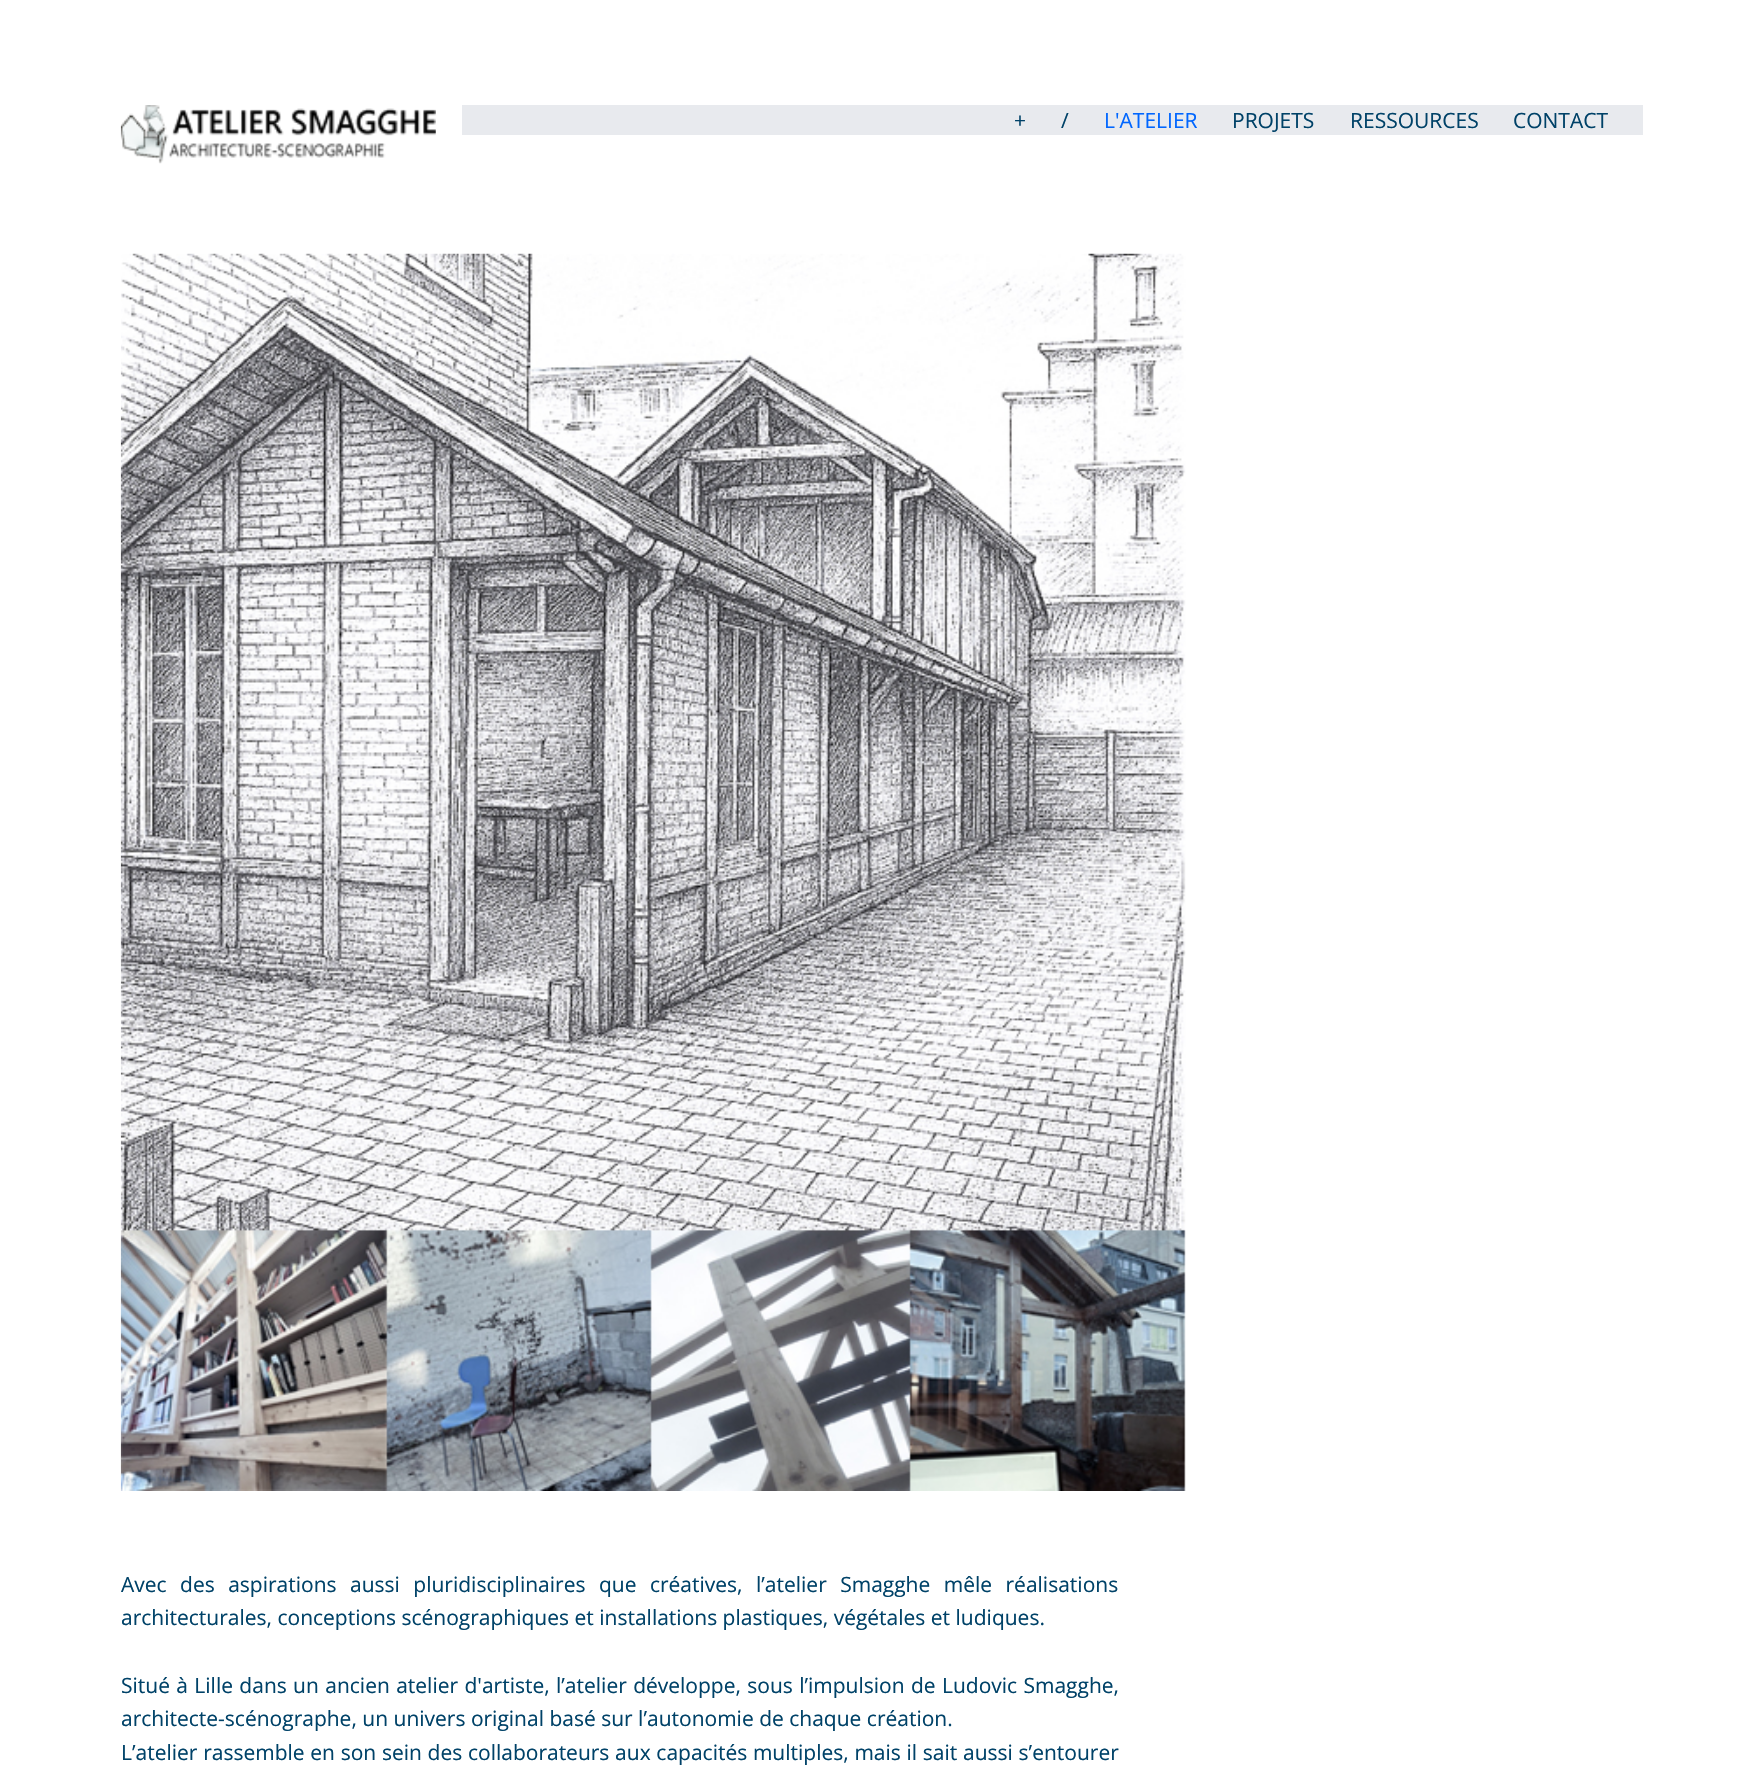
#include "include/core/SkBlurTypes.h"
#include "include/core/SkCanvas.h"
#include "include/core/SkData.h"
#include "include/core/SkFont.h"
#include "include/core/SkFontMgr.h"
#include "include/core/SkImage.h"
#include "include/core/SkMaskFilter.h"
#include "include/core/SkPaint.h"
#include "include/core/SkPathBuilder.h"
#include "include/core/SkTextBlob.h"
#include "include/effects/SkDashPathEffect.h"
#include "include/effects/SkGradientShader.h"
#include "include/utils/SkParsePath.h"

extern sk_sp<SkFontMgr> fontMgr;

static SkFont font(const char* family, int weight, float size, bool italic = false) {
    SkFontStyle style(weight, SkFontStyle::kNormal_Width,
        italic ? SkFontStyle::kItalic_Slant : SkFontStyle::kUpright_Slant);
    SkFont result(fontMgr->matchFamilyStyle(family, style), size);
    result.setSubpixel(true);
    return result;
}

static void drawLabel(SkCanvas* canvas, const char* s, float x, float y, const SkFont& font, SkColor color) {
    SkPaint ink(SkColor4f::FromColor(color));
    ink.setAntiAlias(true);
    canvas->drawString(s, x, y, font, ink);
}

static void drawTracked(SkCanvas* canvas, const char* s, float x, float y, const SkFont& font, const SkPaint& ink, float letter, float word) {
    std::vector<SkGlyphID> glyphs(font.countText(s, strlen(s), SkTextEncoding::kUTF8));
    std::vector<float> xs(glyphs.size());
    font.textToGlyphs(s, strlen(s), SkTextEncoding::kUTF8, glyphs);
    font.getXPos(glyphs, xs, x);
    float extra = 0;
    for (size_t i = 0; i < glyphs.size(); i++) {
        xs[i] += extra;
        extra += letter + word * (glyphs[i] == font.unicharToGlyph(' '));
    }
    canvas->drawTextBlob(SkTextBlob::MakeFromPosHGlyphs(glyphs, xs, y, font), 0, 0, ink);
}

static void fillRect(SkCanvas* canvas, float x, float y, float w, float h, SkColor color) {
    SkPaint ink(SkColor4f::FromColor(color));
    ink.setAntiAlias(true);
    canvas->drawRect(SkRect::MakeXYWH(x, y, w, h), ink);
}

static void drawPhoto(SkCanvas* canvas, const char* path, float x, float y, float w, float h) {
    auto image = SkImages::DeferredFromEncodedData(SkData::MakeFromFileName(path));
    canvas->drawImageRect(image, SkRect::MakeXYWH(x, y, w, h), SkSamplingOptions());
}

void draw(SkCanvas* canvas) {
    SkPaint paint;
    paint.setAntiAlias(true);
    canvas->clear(0xFFFFFFFF);
    drawPhoto(canvas, "assets/img1.png", 120, 105, 316, 59);
    fillRect(canvas, 462, 105, 1181, 30, 0xFFE8EAEE);
    SkFont font1 = font("Open Sans", 400, 21);
    drawLabel(canvas, "+", 1014, 128, font1, 0xFF004268);
    drawLabel(canvas, "/", 1061, 128, font1, 0xFF004268);
    drawLabel(canvas, "L'ATELIER", 1104, 128, font1, 0xFF0066FF);
    drawLabel(canvas, "PROJETS", 1232, 128, font1, 0xFF004268);
    drawLabel(canvas, "RESSOURCES", 1350, 128, font1, 0xFF004268);
    drawLabel(canvas, "CONTACT", 1513, 128, font1, 0xFF004268);
    drawPhoto(canvas, "assets/img2.png", 120, 253, 1066, 1238);
    paint.setColor(0xFF004268);
    drawTracked(canvas, "Avec des aspirations aussi pluridisciplinaires que créatives, l’atelier Smagghe mêle réalisations", 121, 1592, font1, paint, 0, 8);
    drawLabel(canvas, "architecturales, conceptions scénographiques et installations plastiques, végétales et ludiques.", 121, 1625, font1, 0xFF004268);
    drawTracked(canvas, "Situé à Lille dans un ancien atelier d'artiste, l’atelier développe, sous l’impulsion de Ludovic Smagghe,", 121, 1693, font1, paint, 0, 0.9f);
    drawLabel(canvas, "architecte-scénographe, un univers original basé sur l’autonomie de chaque création.", 121, 1726, font1, 0xFF004268);
    drawTracked(canvas, "L’atelier rassemble en son sein des collaborateurs aux capacités multiples, mais il sait aussi s’entourer", 121, 1760, font1, paint, 0, 0.25f);
}
